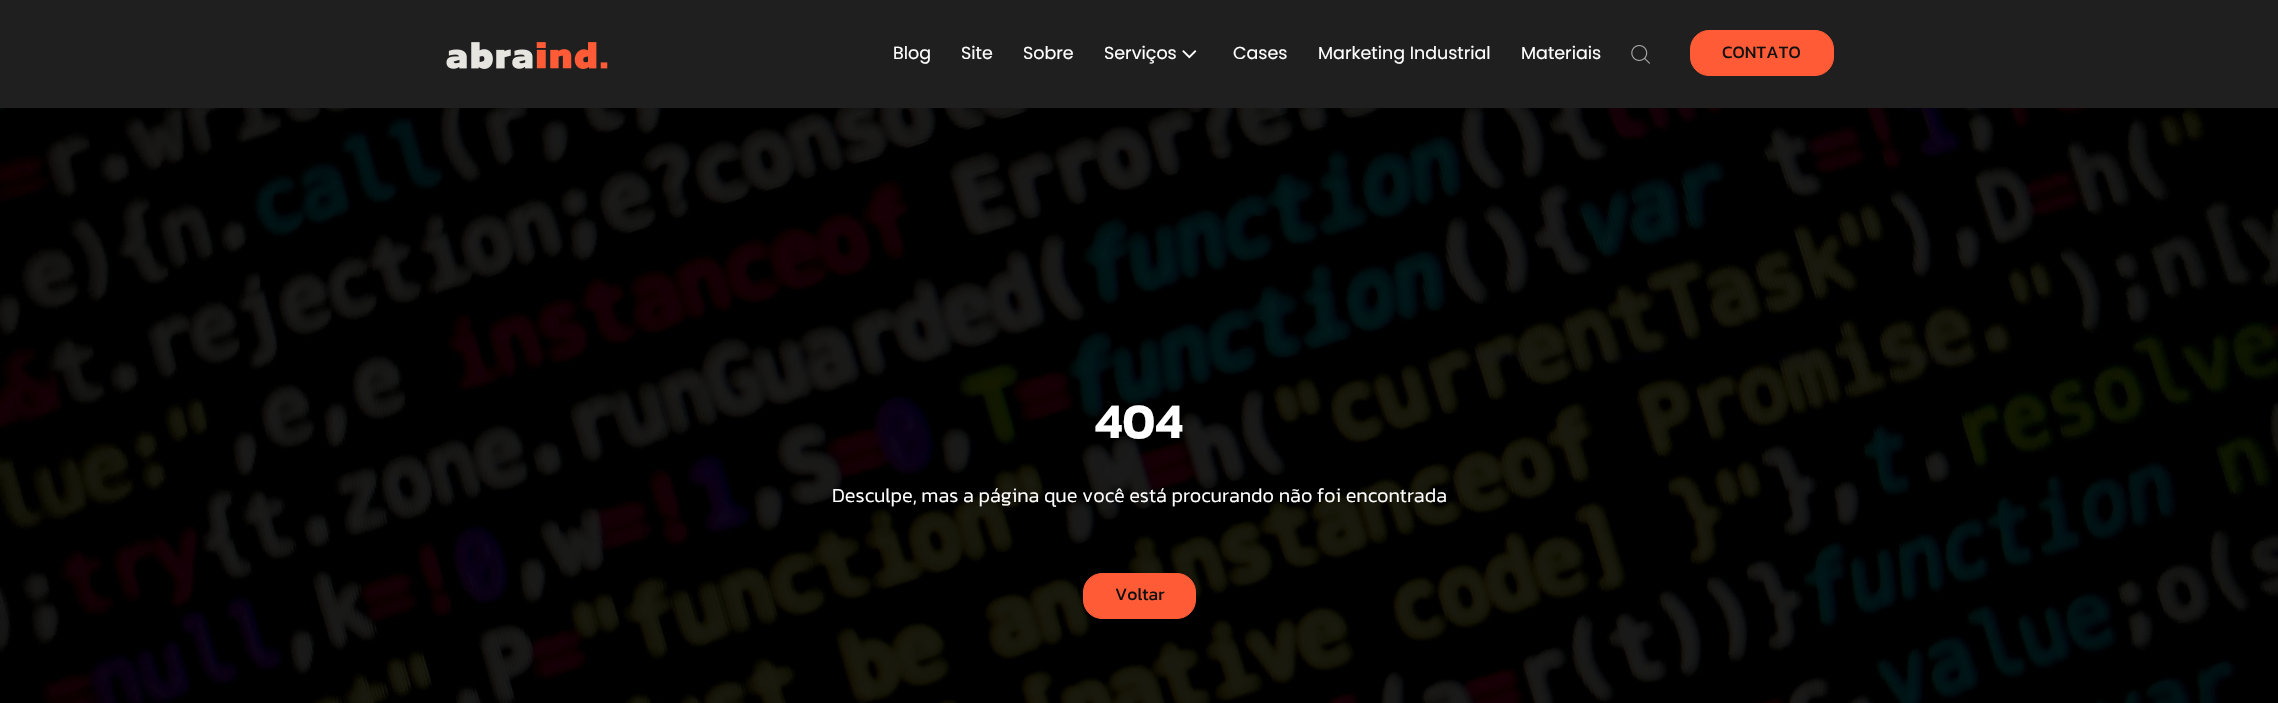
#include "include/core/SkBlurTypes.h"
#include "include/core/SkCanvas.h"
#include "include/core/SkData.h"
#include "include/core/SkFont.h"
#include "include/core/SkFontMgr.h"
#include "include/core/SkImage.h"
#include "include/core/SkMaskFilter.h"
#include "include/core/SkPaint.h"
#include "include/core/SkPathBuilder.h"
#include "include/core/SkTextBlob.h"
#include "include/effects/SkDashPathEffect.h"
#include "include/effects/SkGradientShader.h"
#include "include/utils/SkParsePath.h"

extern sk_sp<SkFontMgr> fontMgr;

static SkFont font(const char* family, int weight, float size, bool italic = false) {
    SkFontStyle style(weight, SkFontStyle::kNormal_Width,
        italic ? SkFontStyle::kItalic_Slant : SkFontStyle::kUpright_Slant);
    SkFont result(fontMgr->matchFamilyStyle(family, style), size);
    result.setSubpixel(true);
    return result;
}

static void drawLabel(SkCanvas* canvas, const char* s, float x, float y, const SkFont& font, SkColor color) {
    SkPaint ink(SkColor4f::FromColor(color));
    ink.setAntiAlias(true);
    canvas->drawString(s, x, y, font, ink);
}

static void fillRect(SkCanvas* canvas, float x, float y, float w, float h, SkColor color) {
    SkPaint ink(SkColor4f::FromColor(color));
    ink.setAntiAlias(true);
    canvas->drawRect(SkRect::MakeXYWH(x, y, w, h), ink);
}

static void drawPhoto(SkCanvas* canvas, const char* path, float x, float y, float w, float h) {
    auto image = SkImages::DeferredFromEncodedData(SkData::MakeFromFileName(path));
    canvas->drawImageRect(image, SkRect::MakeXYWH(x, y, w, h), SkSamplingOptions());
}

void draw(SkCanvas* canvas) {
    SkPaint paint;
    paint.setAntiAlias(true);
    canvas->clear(0xFFFFFFFF);
    fillRect(canvas, 0, 0, 2278, 108, 0xFF1F1F1F);
    drawPhoto(canvas, "assets/img1.png", 446, 42, 162, 27);
    SkFont font1 = font("Poppins", 400, 17.5f);
    drawLabel(canvas, "Blog", 893, 59, font1, 0xFFFFFFFF);
    drawLabel(canvas, "Site", 961, 59, font1, 0xFFFFFFFF);
    drawLabel(canvas, "Sobre", 1023, 59, font1, 0xFFFFFFFF);
    drawLabel(canvas, "Serviços", 1104, 59, font1, 0xFFFFFFFF);
    drawPhoto(canvas, "assets/img2.png", 1182, 50, 15, 9);
    drawLabel(canvas, "Cases", 1233, 59, font1, 0xFFFFFFFF);
    drawLabel(canvas, "Marketing Industrial", 1318, 59, font1, 0xFFFFFFFF);
    drawLabel(canvas, "Materiais", 1521, 59, font1, 0xFFFFFFFF);
    drawPhoto(canvas, "assets/img3.png", 1631, 45, 19, 19);
    paint.setColor(0xFFFF5B36);
    canvas->drawRoundRect(SkRect::MakeXYWH(1690.5f, 30.5f, 143, 45), 18.5f, 18.5f, paint);
    paint.setStroke(true);
    paint.setStrokeWidth(1);
    canvas->drawRoundRect(SkRect::MakeXYWH(1690.5f, 30.5f, 143, 45), 18.5f, 18.5f, paint);
    SkFont font2 = font("Kanit", 400, 17.5f);
    drawLabel(canvas, "CONTATO", 1722, 58, font2, 0xFF101010);
    drawPhoto(canvas, "assets/img4.png", 0, 108, 2278, 595);
    SkFont font3 = font("Kanit", 600, 50);
    drawLabel(canvas, "404", 1095, 438, font3, 0xFFFFFFFF);
    SkFont font4 = font("Kanit", 300, 20);
    drawLabel(canvas, "Desculpe, mas a página que você está procurando não foi encontrada", 832, 502, font4, 0xFFFFFFFF);
    paint.setStroke(false);
    canvas->drawRoundRect(SkRect::MakeXYWH(1083.5f, 573.5f, 112, 45), 18.5f, 18.5f, paint);
    paint.setStroke(true);
    canvas->drawRoundRect(SkRect::MakeXYWH(1083.5f, 573.5f, 112, 45), 18.5f, 18.5f, paint);
    drawLabel(canvas, "Voltar", 1115, 600, font2, 0xFF101010);
}
